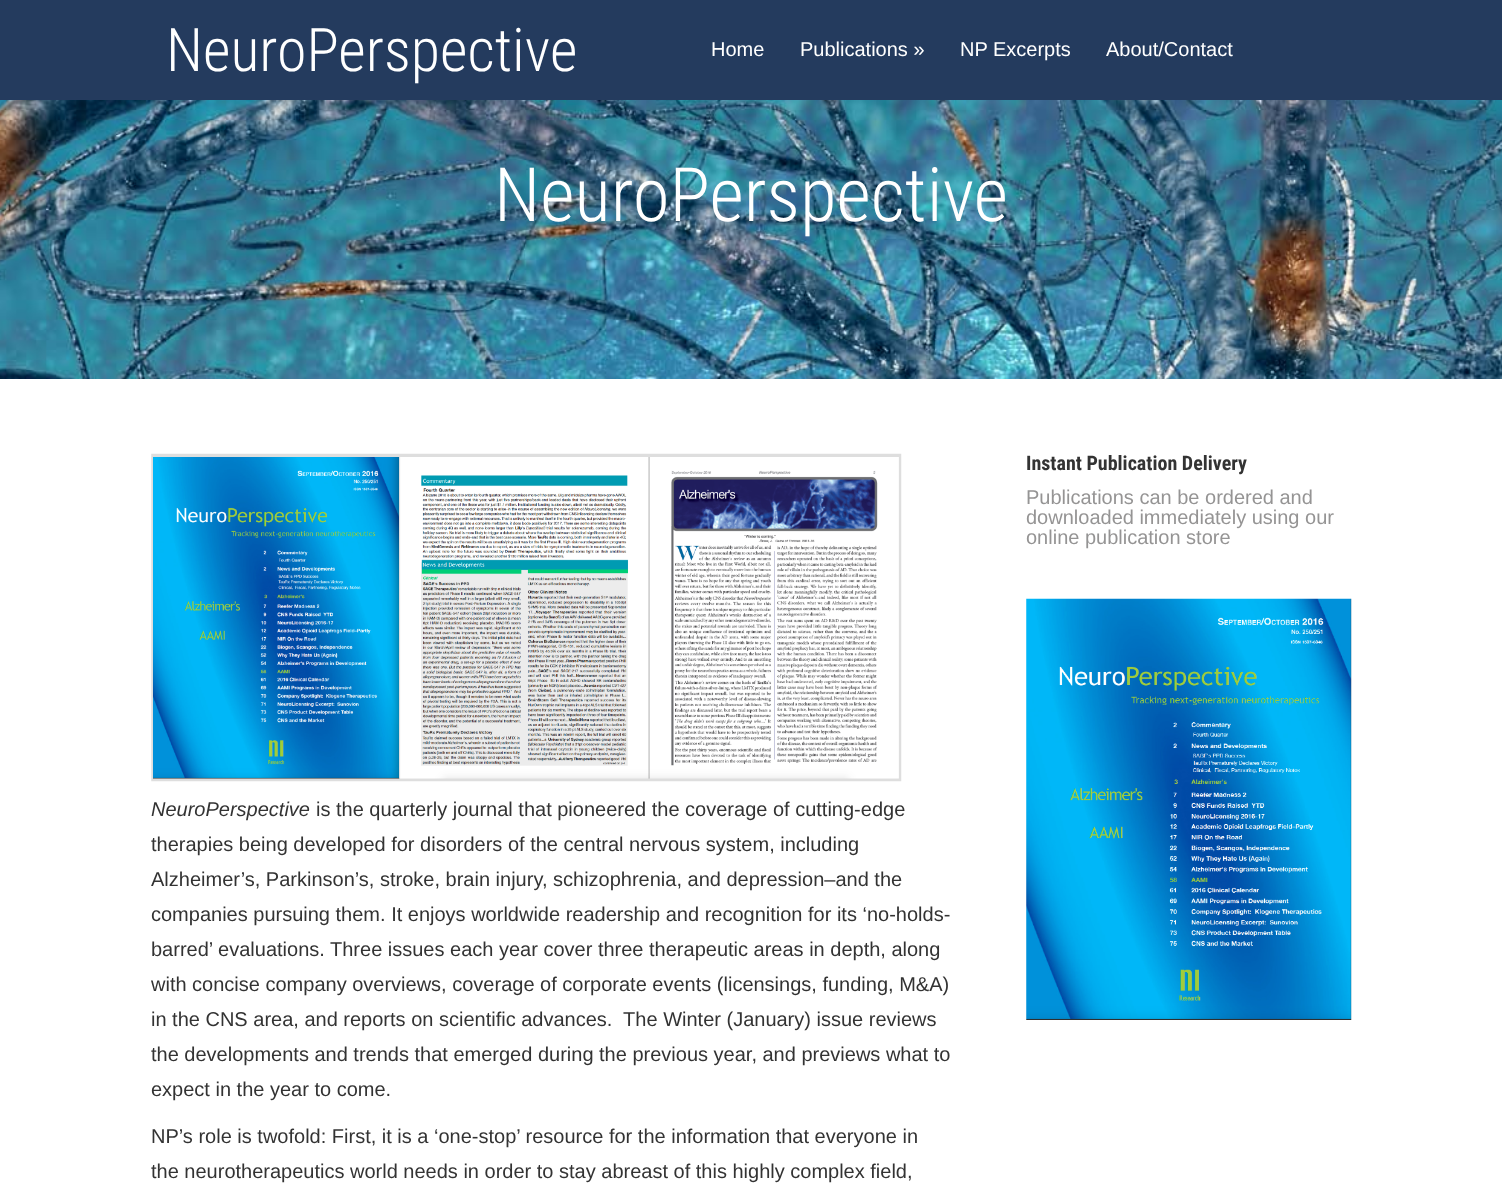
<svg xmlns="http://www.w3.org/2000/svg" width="1502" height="1192">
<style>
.a{font:300 60px Roboto Condensed;fill:#fff}
.b{font:20px Arimo;fill:#fff}
.c{font:300 75px Roboto Condensed;fill:#fff}
.d{font:bold 20px Roboto Condensed;fill:#333}
.e{font:20px Arimo;fill:#959494}
.f{font:italic 20px Arimo;fill:#333}
.g{font:20px Arimo;fill:#333}
</style>
<rect width="100%" height="100%" fill="#fff"/>
<image href="1.png" x="0" y="100" width="1502" height="279"/>
<path fill="#243b5e" d="M0 0h1502v100H0z"/>
<image href="2.png" x="1026" y="598" width="326" height="422"/>
<image href="3.png" x="151" y="453" width="751" height="329"/>
<text class="a" x="166" y="71">NeuroPerspective</text>
<text class="b" x="711" y="56">Home</text>
<text class="b" x="800" y="56">Publications »</text>
<text class="b" x="960" y="56">NP Excerpts</text>
<text class="b" x="1106" y="56">About/Contact</text>
<text class="c" x="494" y="221">NeuroPerspective</text>
<text class="d" x="1026" y="470">Instant Publication Delivery</text>
<text class="e" x="1026" y="504">Publications can be ordered and</text>
<text class="e" x="1026" y="524">downloaded immediately using our</text>
<text class="e" x="1026" y="544">online publication store</text>
<text class="f" x="151" y="816">NeuroPerspective</text>
<text class="g" x="316" y="816">is the quarterly journal that pioneered the coverage of cutting-edge</text>
<text class="g" x="151" y="851">therapies being developed for disorders of the central nervous system, including</text>
<text class="g" x="151" y="886">Alzheimer’s, Parkinson’s, stroke, brain injury, schizophrenia, and depression–and the</text>
<text class="g" x="151" y="921">companies pursuing them. It enjoys worldwide readership and recognition for its ‘no-holds-</text>
<text class="g" x="151" y="956">barred’ evaluations. Three issues each year cover three therapeutic areas in depth, along</text>
<text class="g" x="151" y="991">with concise company overviews, coverage of corporate events (licensings, funding, M&amp;A)</text>
<text class="g" xml:space="preserve" x="151" y="1026">in the CNS area, and reports on scientific advances.  The Winter (January) issue reviews</text>
<text class="g" x="151" y="1061">the developments and trends that emerged during the previous year, and previews what to</text>
<text class="g" x="151" y="1096">expect in the year to come.</text>
<text class="g" x="151" y="1143">NP’s role is twofold: First, it is a ‘one-stop’ resource for the information that everyone in</text>
<text class="g" x="151" y="1178">the neurotherapeutics world needs in order to stay abreast of this highly complex field,</text>
</svg>
